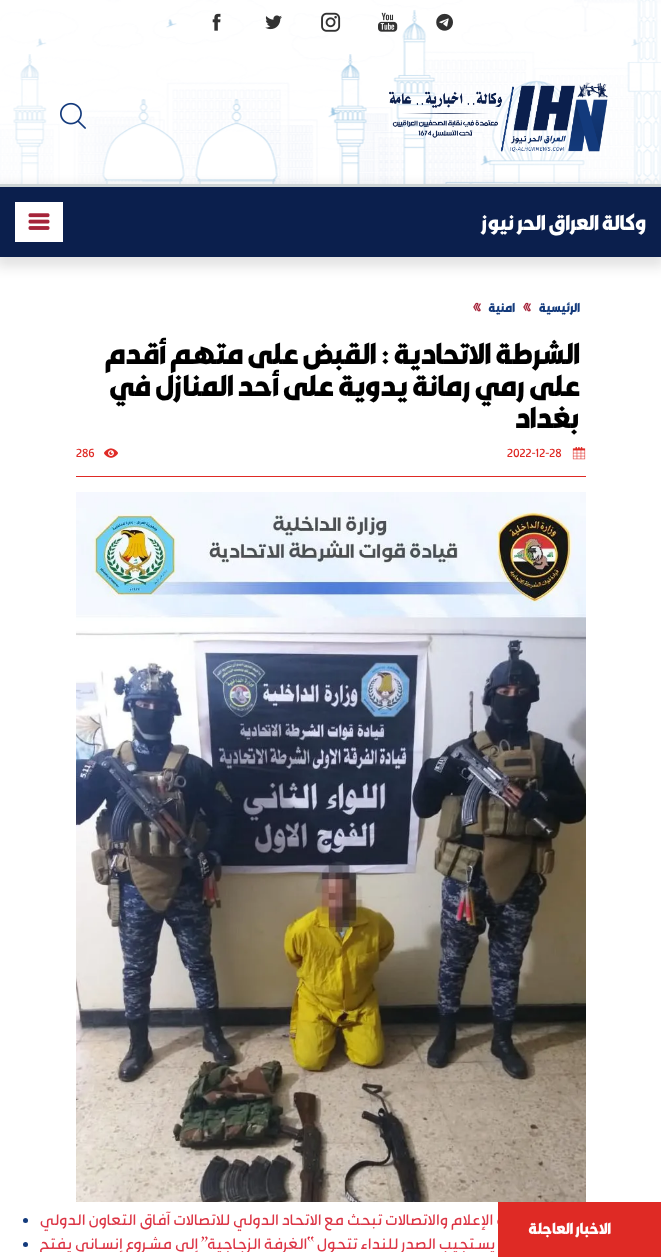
<svg xmlns="http://www.w3.org/2000/svg" width="661" height="1257">
<style>
.a{font:bold 20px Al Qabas;direction:rtl;fill:#fff}
.b{font:16px Al Qabas;direction:rtl;fill:#dc3545}
.c{font:bold 15px Al Qabas;direction:rtl;fill:#fff}
.d{font:bold 12px Al Qabas;direction:rtl;fill:#133a7c}
.e{font:bold 28px Al Qabas;direction:rtl;fill:#000}
.f{font:12px Al Qabas;fill:#df2a25}
</style>
<defs>
<clipPath id="clip1"><path d="M0 1207h529v45H0z"/></clipPath>
</defs>
<rect width="100%" height="100%" fill="#fff"/>
<image href="1.png" x="0" y="0" width="661" height="184"/>
<image href="2.png" x="436" y="13" width="17" height="18"/>
<image href="3.png" x="378" y="12" width="20" height="20"/>
<image href="4.png" x="321" y="12" width="20" height="20"/>
<image href="5.png" x="265" y="15" width="17" height="15"/>
<image href="6.png" x="212" y="13" width="9" height="18"/>
<image href="7.png" x="389" y="82" width="219" height="70"/>
<image href="8.png" x="60" y="102" width="26" height="27"/>
<path fill="#1717171f" filter="blur(6px)" d="M-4 186h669v81H-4z"/>
<path fill="#0b1f4d" d="M0 187h661v70H0z"/>
<path fill="#cdd4d5" d="M0 184h661v3H0z"/>
<path fill="#fff" d="M15 202h48v40H15z"/>
<image href="9.png" x="28" y="213" width="22" height="17"/>
<circle fill="#133a7c" cx="25.5" cy="1220.5" r="2.5"/>
<circle fill="#133a7c" cx="25.5" cy="1244.5" r="2.5"/>
<image href="10.png" x="523" y="302" width="8" height="10"/>
<image href="10.png" x="473" y="302" width="8" height="10"/>
<path fill="#df2a25" d="M76 476h510v1H76z"/>
<image href="11.png" x="572" y="447" width="14" height="13"/>
<image href="12.png" x="104" y="448" width="14" height="10"/>
<image href="13.png" x="76" y="492" width="510" height="710"/>
<text class="a" x="646" y="230">وكالة العراق الحر نيوز</text>
<text class="b" x="528" y="1225">هيأة الإعلام والاتصالات تبحث مع الاتحاد الدولي للاتصالات آفاق التعاون الدولي</text>
<g clip-path="url(#clip1)">
<text class="b" x="526" y="1249">حين يستجيب الصدر للنداء تتحول “الغرفة الزجاجية” إلى مشروع إنساني يفتح</text>
</g>
<path fill="#df2a25" d="M498 1202h163v55H498z"/>
<text class="c" x="611" y="1234">الاخبار العاجلة</text>
<text class="d" x="580" y="312">الرئيسية</text>
<text class="d" x="515" y="312">امنية</text>
<text class="e" x="580" y="364">الشرطة الاتحادية : القبض على متهم أقدم</text>
<text class="e" x="580" y="396">على رمي رمانة يدوية على أحد المنازل في</text>
<text class="e" x="580" y="428">بغداد</text>
<text class="f" x="507" y="457">2022-12-28</text>
<text class="f" x="76" y="457">286</text>
</svg>
